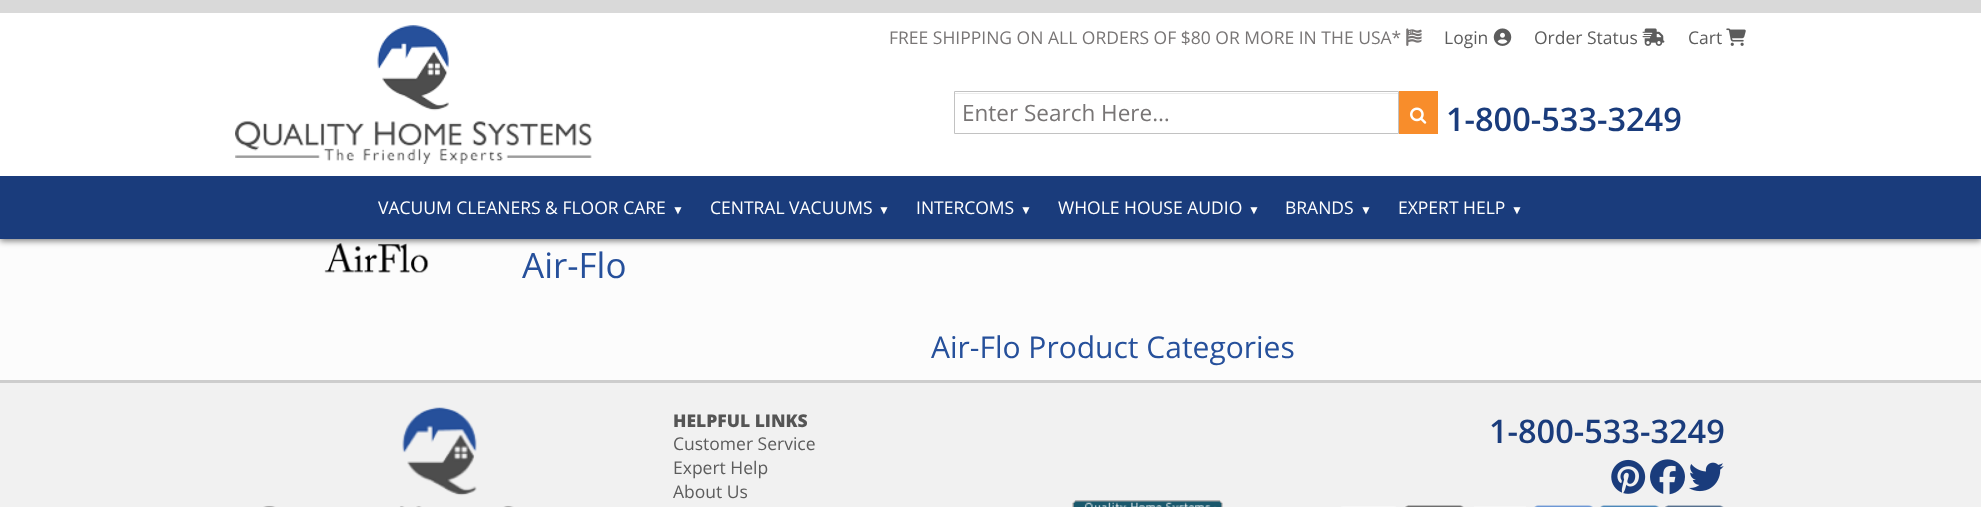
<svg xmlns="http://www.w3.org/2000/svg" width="1981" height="507">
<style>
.a{font:17.5px Open Sans;fill:#787575}
.b{font:17.5px Open Sans;fill:#5c5c5c}
.c{font:22.5px Open Sans;fill:#787575}
.d{font:600 32.5px Open Sans;fill:#1a3c7c}
.e{font:17.5px Open Sans;fill:#fff}
.f{font:12px Liberation Sans;fill:#fff}
.g{font:35px Open Sans;fill:#26509b}
.h{font:30px Open Sans;fill:#26509b}
.i{font:800 17.5px Open Sans;fill:#555}
</style>
<rect width="100%" height="100%" fill="#fcfcfc"/>
<image href="7.png" x="324" y="243" width="105" height="30"/>
<path fill="#00000080" filter="blur(3px)" d="M0 3h1981v238H0z"/>
<path fill="#fff" d="M0 13h1981v163H0z"/>
<path fill="#d9d9d9" d="M0 0h1981v13H0z"/>
<image href="1.png" x="235" y="25" width="357" height="139"/>
<image href="2.png" x="1406" y="28" width="16" height="18"/>
<image href="3.png" x="1493" y="28" width="19" height="18"/>
<image href="4.png" x="1642" y="28" width="23" height="18"/>
<image href="5.png" x="1726" y="28" width="20" height="18"/>
<path fill="#ececec" d="M955 93h443v1H955z"/>
<path fill="none" stroke="#c2c2c2" d="M954.5 91.5h444v42H954.5z"/>
<path fill="#f88d2b" d="M1399 91h39v43H1399z"/>
<image href="6.png" x="1410" y="107" width="17" height="17"/>
<path fill="#1a3c7c" d="M0 176h1981v63H0z"/>
<path fill="#f1f1f1" d="M0 383h1981v124H0z"/>
<path fill="#cdcdcd" d="M0 380h1981v3H0z"/>
<image href="8.png" x="263" y="407" width="251" height="100"/>
<image href="9.png" x="1611" y="459" width="35" height="35"/>
<image href="10.png" x="1650" y="459" width="35" height="36"/>
<image href="11.png" x="1689" y="462" width="35" height="30"/>
<image href="12.png" x="1072" y="500" width="151" height="7"/>
<image href="13.png" x="1341" y="506" width="55" height="1"/>
<image href="14.png" x="1405" y="505" width="59" height="2"/>
<path fill="#f6f6f6" d="M1474 506h52v1H1474z"/>
<image href="15.png" x="1534" y="505" width="59" height="2"/>
<image href="16.png" x="1600" y="505" width="59" height="2"/>
<image href="17.png" x="1665" y="505" width="59" height="2"/>
<text class="a" x="889" y="44">FREE SHIPPING ON ALL ORDERS OF $80 OR MORE IN THE USA*</text>
<text class="b" x="1444" y="44">Login</text>
<text class="b" x="1534" y="44">Order Status</text>
<text class="b" x="1688" y="44">Cart</text>
<text class="c" x="962" y="121">Enter Search Here…</text>
<text class="d" x="1446" y="131">1-800-533-3249</text>
<text class="e" x="378" y="214">VACUUM CLEANERS &amp; FLOOR CARE</text>
<text class="f" x="672" y="214">▼</text>
<text class="e" x="710" y="214">CENTRAL VACUUMS</text>
<text class="f" x="878" y="214">▼</text>
<text class="e" x="916" y="214">INTERCOMS</text>
<text class="f" x="1020" y="214">▼</text>
<text class="e" x="1058" y="214">WHOLE HOUSE AUDIO</text>
<text class="f" x="1248" y="214">▼</text>
<text class="e" x="1285" y="214">BRANDS</text>
<text class="f" x="1360" y="214">▼</text>
<text class="e" x="1398" y="214">EXPERT HELP</text>
<text class="f" x="1511" y="214">▼</text>
<text class="g" x="522" y="278">Air-Flo</text>
<text class="h" x="931" y="358">Air-Flo Product Categories</text>
<text class="i" x="673" y="427">HELPFUL LINKS</text>
<text class="b" x="673" y="450">Customer Service</text>
<text class="b" x="673" y="474">Expert Help</text>
<text class="b" x="673" y="498">About Us</text>
<text class="d" x="1489" y="443">1-800-533-3249</text>
</svg>
